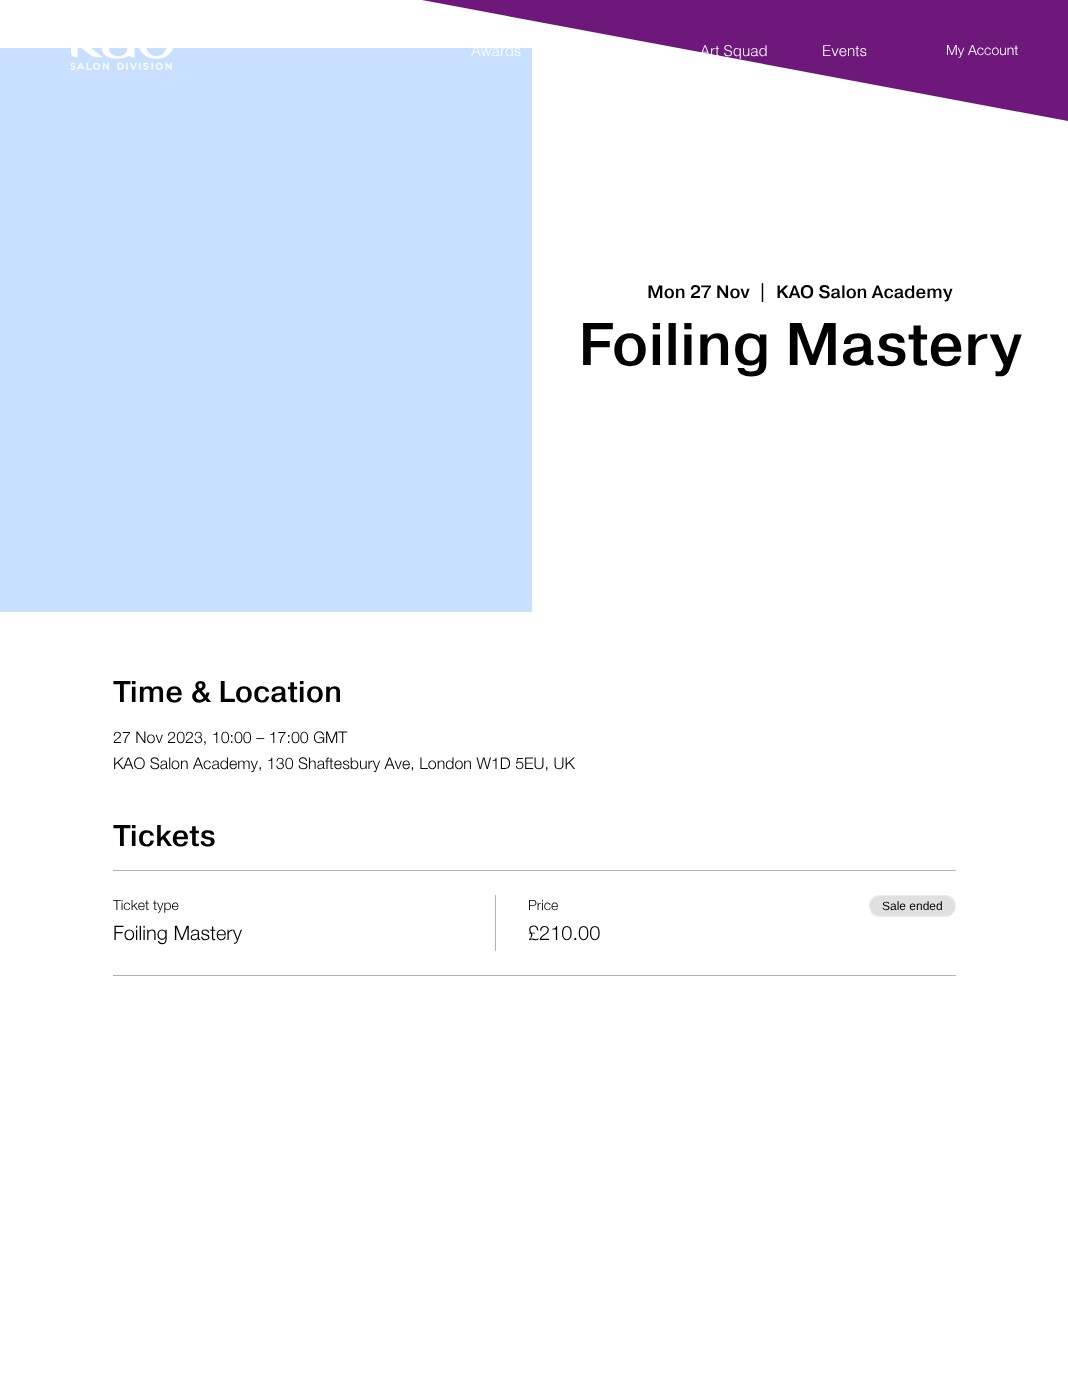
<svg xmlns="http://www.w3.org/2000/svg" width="1068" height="1374">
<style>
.a{font:300 15px helvetica;fill:#fff}
.b{font:300 14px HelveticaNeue;fill:#fff}
.c{font:500 18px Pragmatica;fill:#000}
.d{font:500 60px Pragmatica;fill:#000}
.e{font:500 30px Pragmatica;fill:#000}
.f{font:300 16px HelveticaNeue;fill:#000}
.g{font:300 14px HelveticaNeue;fill:#000}
.h{font:300 20px HelveticaNeue;fill:#000}
.i{font:12px Liberation Sans;fill:#000}
</style>
<rect width="100%" height="100%" fill="#fff"/>
<path fill="#6e187c" d="M422 0h646v121H422z"/>
<path fill="#fff" d="M1068 121l-1068-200v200z"/>
<path fill="#c8e0fe" d="M0 48h532v564H0z"/>
<image href="1.png" x="71" y="48" width="102" height="22"/>
<path fill="#b3b3b3" d="M113 870h843v1H113z"/>
<path fill="#b3b3b3" d="M113 975h843v1H113z"/>
<path fill="#b3b3b3" d="M495 895h1v56H495z"/>
<rect fill="#e0e0e0" x="869" y="895" width="87" height="22" rx="11"/>
<rect fill="none" stroke="#ffffff66" x="869.5" y="895.5" width="86" height="21" rx="10.5"/>
<text class="a" x="471" y="56">Awards</text>
<text class="a" x="700" y="56">Art Squad</text>
<text class="a" x="822" y="56">Events</text>
<text class="b" x="946" y="55">My Account</text>
<text class="c" x="647" y="298">Mon 27 Nov</text>
<text class="c" x="758" y="298">|</text>
<text class="c" x="776" y="298">KAO Salon Academy</text>
<text class="d" x="578" y="365">Foiling Mastery</text>
<text class="e" x="113" y="702">Time &amp; Location</text>
<text class="f" x="113" y="743">27 Nov 2023, 10:00 – 17:00 GMT</text>
<text class="f" x="113" y="769">KAO Salon Academy, 130 Shaftesbury Ave, London W1D 5EU, UK</text>
<text class="e" x="113" y="846">Tickets</text>
<text class="g" x="113" y="910">Ticket type</text>
<text class="h" x="113" y="940">Foiling Mastery</text>
<text class="g" x="528" y="910">Price</text>
<text class="h" x="528" y="940">£210.00</text>
<text class="i" x="882" y="910">Sale ended</text>
</svg>
